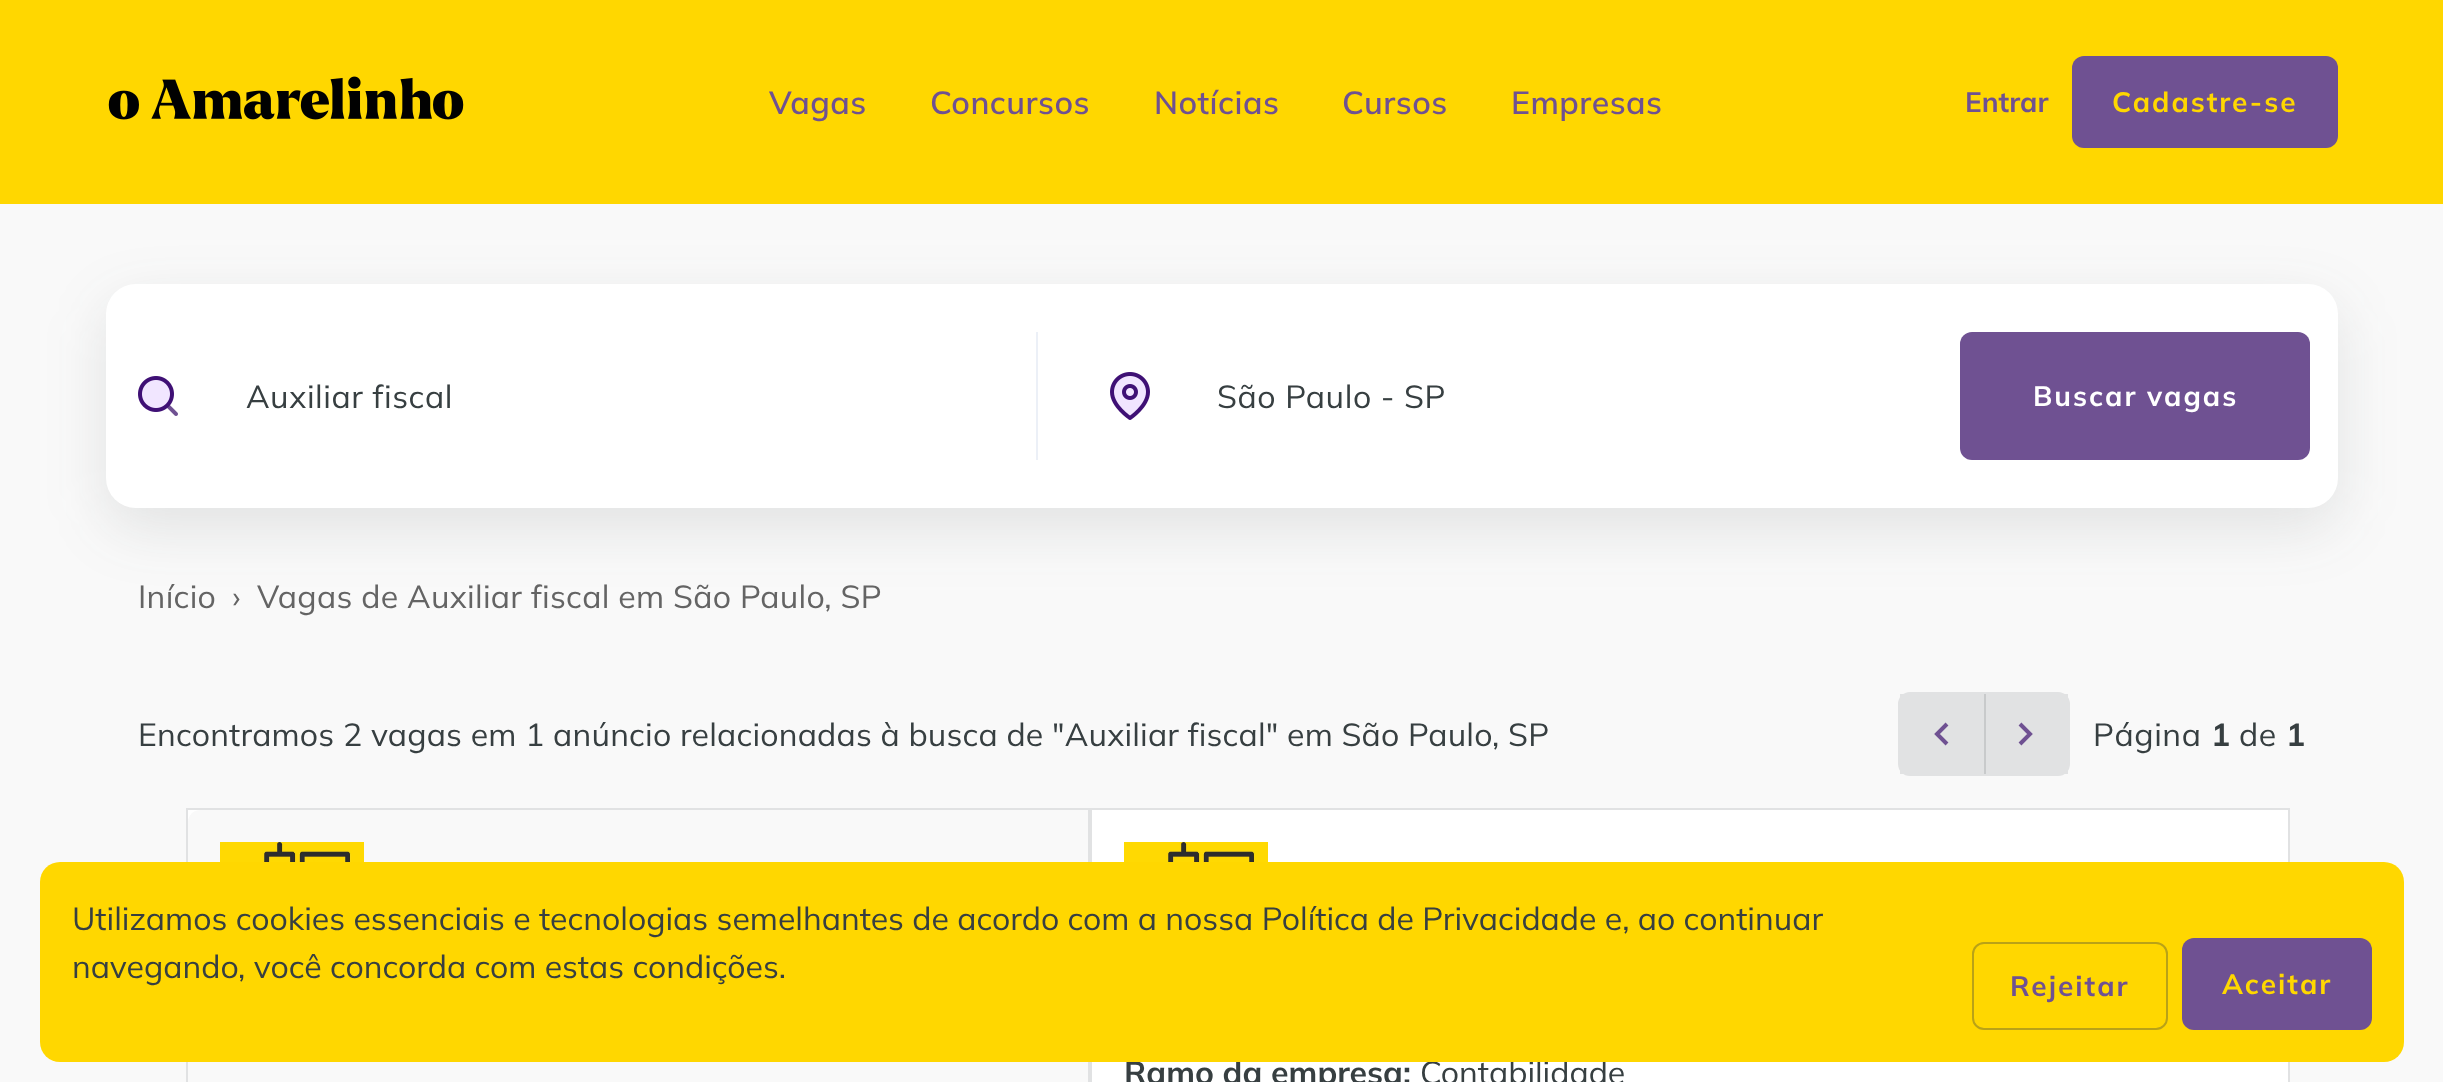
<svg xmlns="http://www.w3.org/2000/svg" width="2443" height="1082">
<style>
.a{font:600 32px Mulish;letter-spacing:0.5px;fill:#6f5192}
.b{font:bold 28px Mulish;fill:#6f5192}
.c{font:bold 28px Mulish;letter-spacing:2px;fill:#ffd700}
.d{font:32px Mulish;letter-spacing:0.6px;fill:#373f41}
.e{font:bold 28px Mulish;letter-spacing:2px;fill:#fff}
.f{font:32px Mulish;letter-spacing:0.3px;fill:#646464}
.g{font:32px Mulish;letter-spacing:0.2px;fill:#373f41}
.h{font:bold 32px Mulish;letter-spacing:0.6px;fill:#373f41}
.i{font:bold 32px Mulish;fill:#373f41}
.j{font:32px Mulish;fill:#373f41}
.k{font:bold 28px Mulish;letter-spacing:2px;fill:#6f5192}
</style>
<rect width="100%" height="100%" fill="#f9f9f9"/>
<path fill="#ffd700" d="M0 0h2443v204H0z"/>
<image href="1.png" x="108" y="76" width="356" height="44"/>
<rect fill="#6f5192" x="2072" y="56" width="266" height="92" rx="12"/>
<rect fill="#373f411f" filter="blur(30px)" x="106" y="304" width="2232" height="224" rx="30"/>
<rect fill="#fff" x="106" y="284" width="2232" height="224" rx="30"/>
<image href="2.png" x="138" y="376" width="40" height="40"/>
<path fill="#ecf0f7" d="M1036 332h2v128H1036z"/>
<image href="3.png" x="1110" y="372" width="40" height="48"/>
<rect fill="#6f5192" x="1960" y="332" width="350" height="128" rx="12"/>
<rect fill="#fff" x="1898" y="692" width="172" height="84" rx="12"/>
<rect fill="none" stroke="#373f4126" stroke-width="2" x="1899" y="693" width="170" height="82" rx="11"/>
<path fill="#e1e2e3" d="M1900 694h84v80H1900z"/>
<path fill="none" stroke="#6f5192" stroke-width="4" d="M1947 724l-10 10l10 10"/>
<path fill="#c8cacb" d="M1984 694h2v80H1984z"/>
<path fill="#e1e2e3" d="M1986 694h82v80H1986z"/>
<path fill="none" stroke="#6f5192" stroke-width="4" d="M2020 744l10-10l-10-10"/>
<path fill="#fff" d="M188 810h12v12H188z"/>
<path fill="none" stroke="#e1e2e3" stroke-width="2" d="M187 809h902v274H187z"/>
<path fill="#f9f9f9" d="M200 810h888v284h-888c-6.5 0-12-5.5-12-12v-260c0-6.5 5.5-12 12-12z"/>
<image href="4.png" x="220" y="842" width="144" height="20"/>
<path fill="#fff" stroke="#e1e2e3" stroke-width="2" d="M1091 809h1198v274H1091z"/>
<image href="5.png" x="1124" y="842" width="144" height="20"/>
<text class="a" x="769" y="114">Vagas</text>
<text class="a" x="930" y="114">Concursos</text>
<text class="a" x="1154" y="114">Notícias</text>
<text class="a" x="1342" y="114">Cursos</text>
<text class="a" x="1511" y="114">Empresas</text>
<text class="b" x="1965" y="112">Entrar</text>
<text class="c" x="2112" y="112">Cadastre-se</text>
<text class="d" x="246" y="408">Auxiliar fiscal</text>
<text class="d" x="1217" y="408">São Paulo - SP</text>
<text class="e" x="2033" y="406">Buscar vagas</text>
<text class="f" x="138" y="608">Início</text>
<text class="f" x="232" y="608">›</text>
<text class="f" x="257" y="608">Vagas de Auxiliar fiscal em São Paulo, SP</text>
<text class="g" x="138" y="746">Encontramos 2 vagas em 1 anúncio relacionadas à busca de "Auxiliar fiscal" em São Paulo, SP</text>
<text class="d" x="2093" y="746">Página</text>
<text class="h" x="2211" y="746">1</text>
<text class="d" x="2239" y="746">de</text>
<text class="h" x="2286" y="746">1</text>
<text class="i" x="1124" y="1084">Ramo da empresa:</text>
<text class="j" x="1420" y="1084">Contabilidade</text>
<rect fill="#ffd700" x="40" y="862" width="2364" height="200" rx="20"/>
<text class="j" x="72" y="930">Utilizamos cookies essenciais e tecnologias semelhantes de acordo com a nossa Política de Privacidade e, ao continuar</text>
<text class="j" x="72" y="978">navegando, você concorda com estas condições.</text>
<rect fill="none" stroke="#b9a217" stroke-width="2" x="1973" y="943" width="194" height="86" rx="11"/>
<text class="k" x="2010" y="996">Rejeitar</text>
<rect fill="#6f5192" x="2182" y="938" width="190" height="92" rx="12"/>
<text class="c" x="2222" y="994">Aceitar</text>
</svg>
